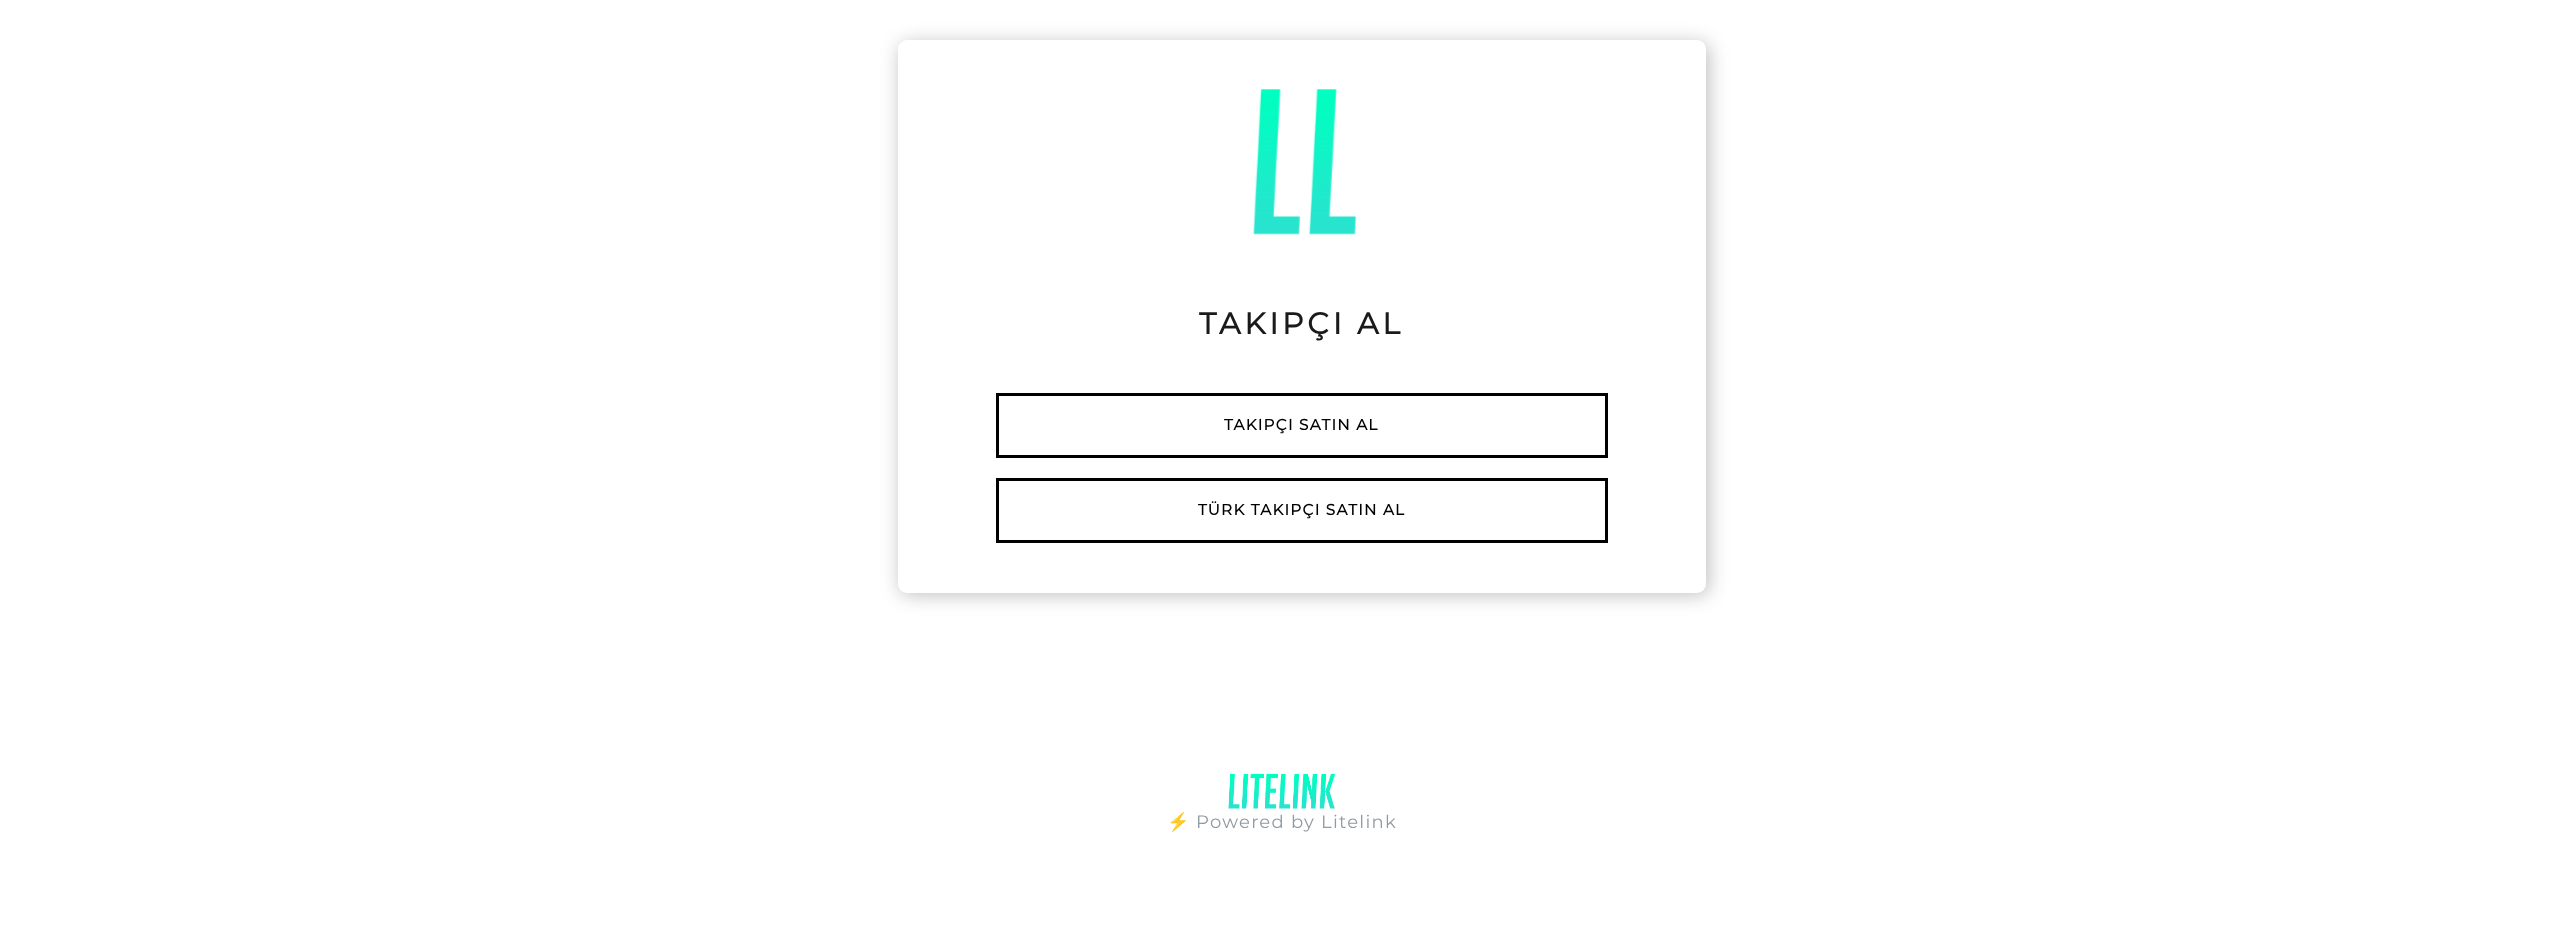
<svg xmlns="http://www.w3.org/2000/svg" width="2563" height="935">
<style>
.a{font:bold 30px Montserrat;letter-spacing:3.75px;fill:#1a1a1a}
.b{font:bold 15.25px Montserrat;letter-spacing:1.25px;fill:#000}
.c{font:18px Noto Color Emoji;letter-spacing:1.25px;fill:#919aa1}
.d{font:100 18px Montserrat;letter-spacing:1.25px;fill:#919aa1}
</style>
<rect width="100%" height="100%" fill="#fff"/>
<rect fill="#00000040" filter="blur(9.5px)" x="900" y="43" width="809" height="552" rx="9"/>
<rect fill="#fff" x="898" y="40" width="808" height="553" rx="9"/>
<image href="1.png" x="1253" y="89" width="104" height="146"/>
<path fill="none" stroke="#000" stroke-width="3" d="M997.5 394.5h609v62H997.5z"/>
<path fill="none" stroke="#000" stroke-width="3" d="M997.5 479.5h609v62H997.5z"/>
<image href="2.png" x="1228" y="773" width="108" height="36"/>
<text class="a" x="1199" y="334">TAKIPÇI AL</text>
<text class="b" x="1224" y="430">TAKIPÇI SATIN AL</text>
<text class="b" x="1198" y="515">TÜRK TAKIPÇI SATIN AL</text>
<text class="c" x="1167" y="828">⚡</text>
<text class="d" x="1196" y="828">Powered by Litelink</text>
</svg>
